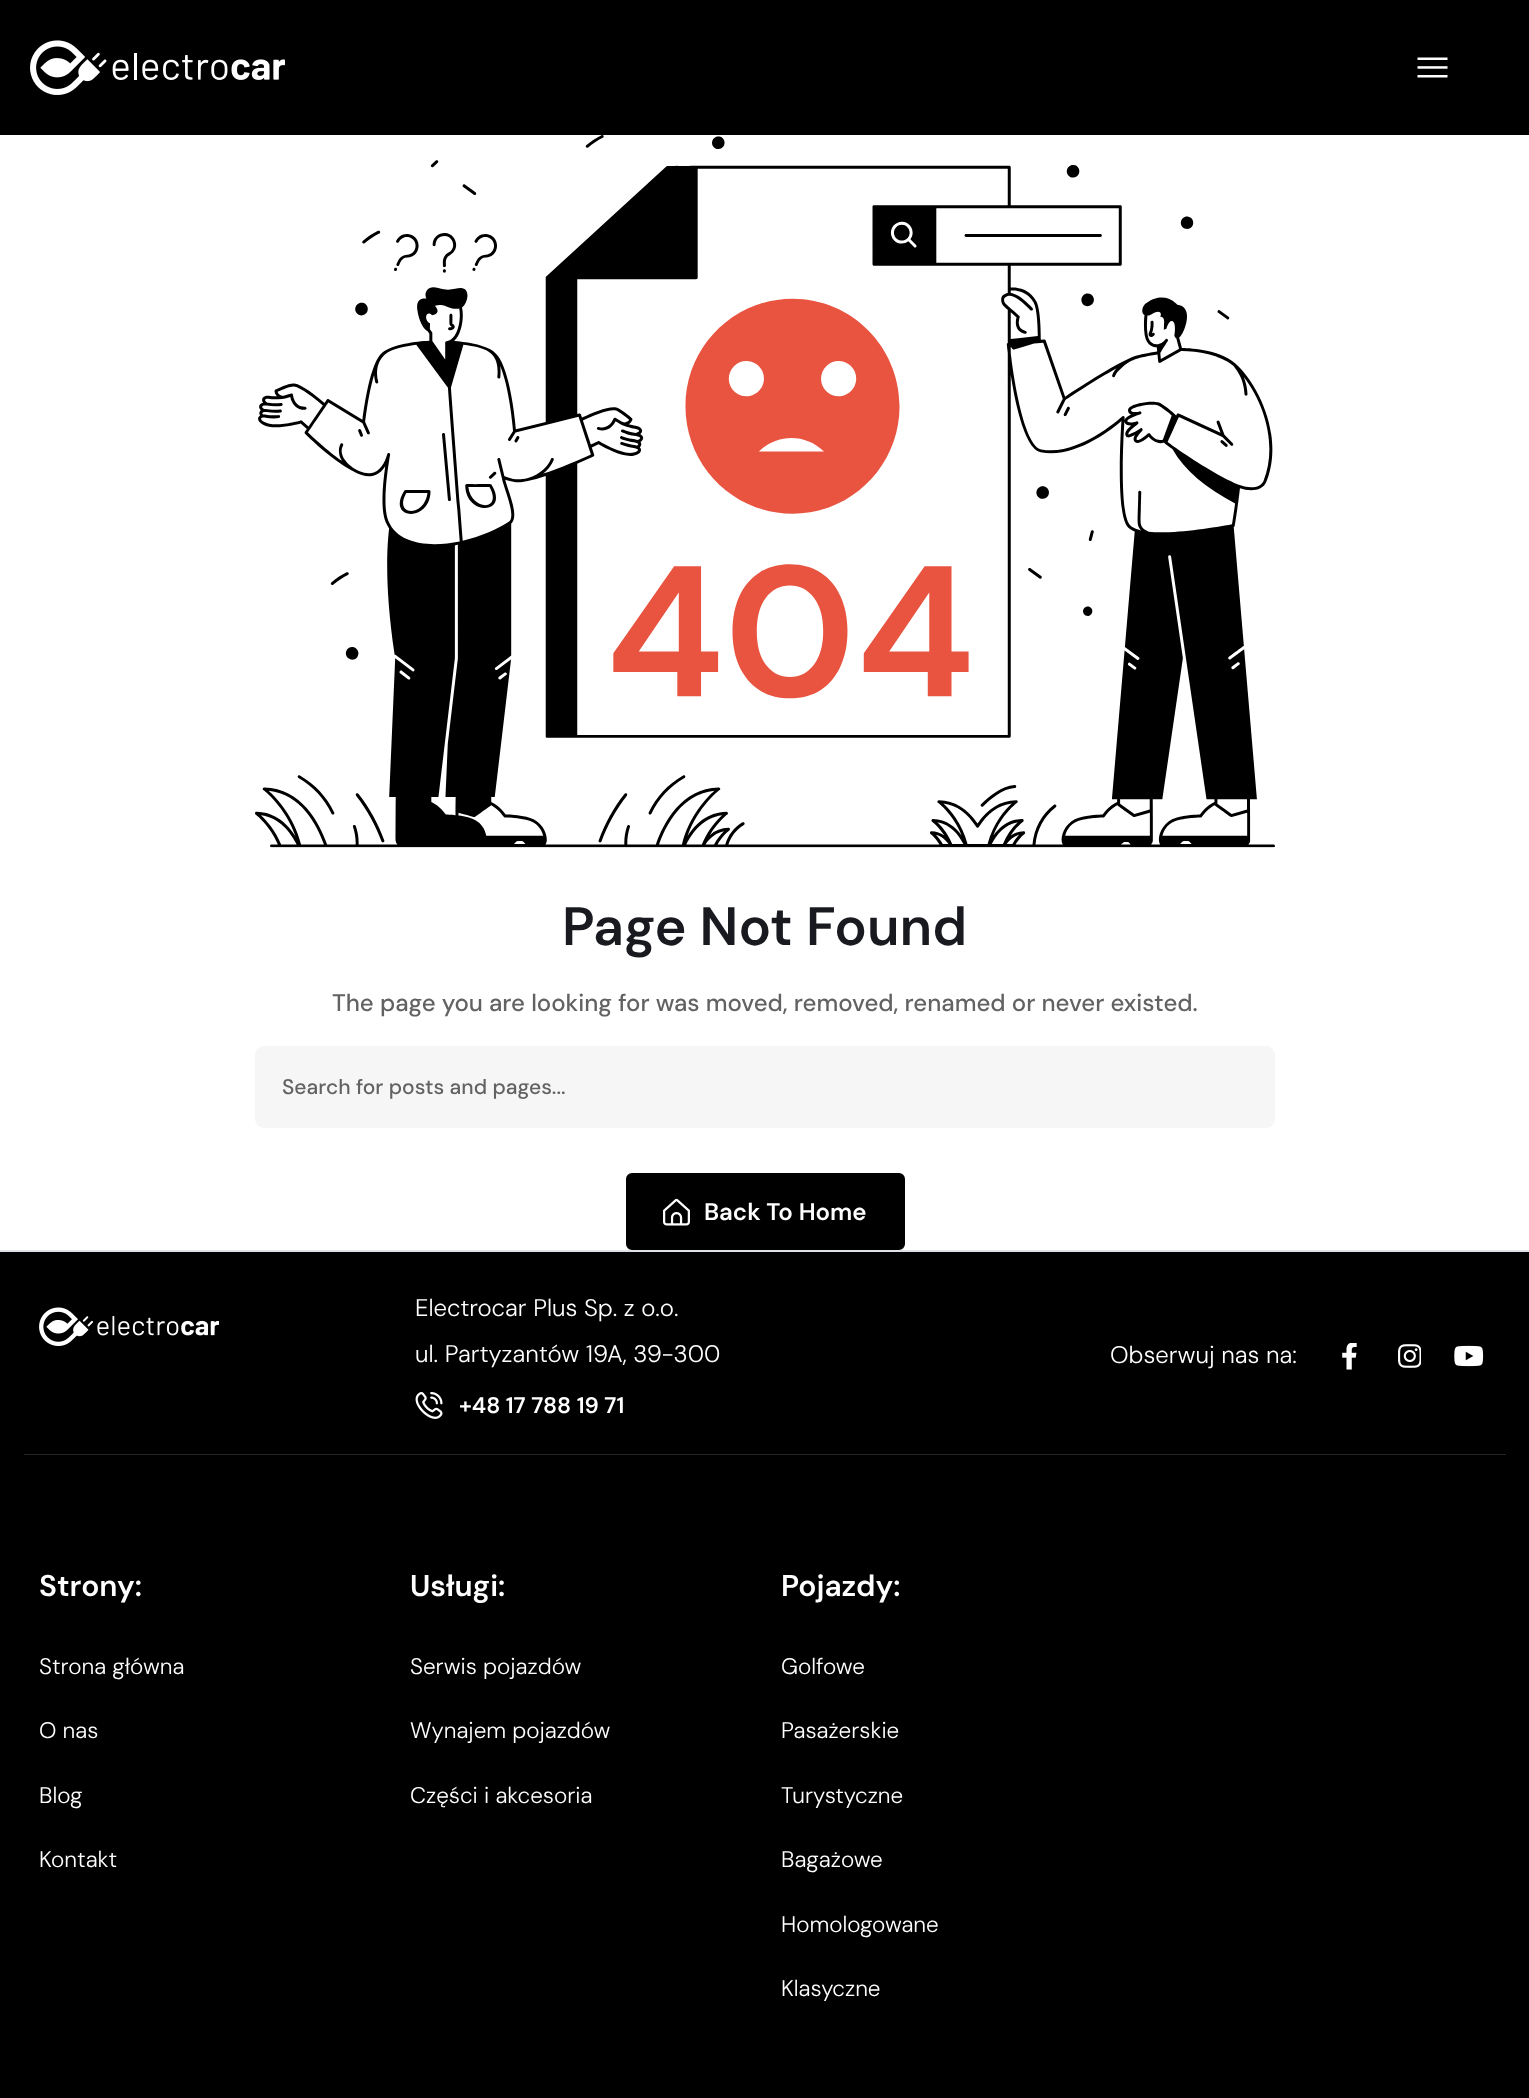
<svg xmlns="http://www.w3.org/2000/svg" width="1529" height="2098">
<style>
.a{font:600 54px DM Sans;fill:#181a1f}
.b{font:500 24px DM Sans;fill:#626262}
.c{font:500 21px DM Sans;fill:#626262}
.d{font:600 24px DM Sans;fill:#fff}
.e{font:300 24px DM Sans;fill:#fff}
.f{font:600 22.5px DM Sans;fill:#fff}
.g{font:600 30px DM Sans;fill:#fff}
.h{font:300 22.5px DM Sans;fill:#fff}
</style>
<rect width="100%" height="100%" fill="#fff"/>
<path fill="#000" d="M0 0h1529v135H0z"/>
<image href="1.png" x="30" y="40" width="255" height="55"/>
<image href="2.png" x="1417" y="57" width="31" height="21"/>
<image href="3.png" x="255" y="135" width="1020" height="713"/>
<rect fill="#f6f6f6" stroke="#f6f6f6" stroke-width="3" x="256.5" y="1047.5" width="1017" height="79" rx="7.5"/>
<rect fill="#000" stroke="#000" stroke-width="2" x="627" y="1174" width="277" height="75" rx="5"/>
<image href="4.png" x="663" y="1198" width="27" height="28"/>
<path fill="#000" d="M0 1252h1529v846H0z"/>
<path fill="#242424" d="M24 1454h1482v1H24z"/>
<path fill="#dee2e6" d="M0 1250h1529v2H0z"/>
<image href="5.png" x="39" y="1307" width="180" height="39"/>
<image href="6.png" x="415" y="1392" width="28" height="27"/>
<image href="7.png" x="1342" y="1343" width="15" height="27"/>
<image href="8.png" x="1398" y="1344" width="23" height="24"/>
<image href="9.png" x="1454" y="1345" width="30" height="22"/>
<text class="a" x="562" y="945">Page Not Found</text>
<text class="b" x="332" y="1011">The page you are looking for was moved, removed, renamed or never existed.</text>
<text class="c" x="282" y="1094">Search for posts and pages...</text>
<text class="d" x="704" y="1220">Back To Home</text>
<text class="e" x="415" y="1316">Electrocar Plus Sp. z o.o.</text>
<text class="e" x="415" y="1362">ul. Partyzantów 19A, 39-300</text>
<text class="f" x="459" y="1413">+48 17 788 19 71</text>
<text class="e" x="1110" y="1363">Obserwuj nas na:</text>
<text class="g" x="39" y="1596">Strony:</text>
<text class="h" x="39" y="1674">Strona główna</text>
<text class="h" x="39" y="1738">O nas</text>
<text class="h" x="39" y="1803">Blog</text>
<text class="h" x="39" y="1867">Kontakt</text>
<text class="g" x="410" y="1596">Usługi:</text>
<text class="h" x="410" y="1674">Serwis pojazdów</text>
<text class="h" x="410" y="1738">Wynajem pojazdów</text>
<text class="h" x="410" y="1803">Części i akcesoria</text>
<text class="g" x="781" y="1596">Pojazdy:</text>
<text class="h" x="781" y="1674">Golfowe</text>
<text class="h" x="781" y="1738">Pasażerskie</text>
<text class="h" x="781" y="1803">Turystyczne</text>
<text class="h" x="781" y="1867">Bagażowe</text>
<text class="h" x="781" y="1932">Homologowane</text>
<text class="h" x="781" y="1996">Klasyczne</text>
</svg>
